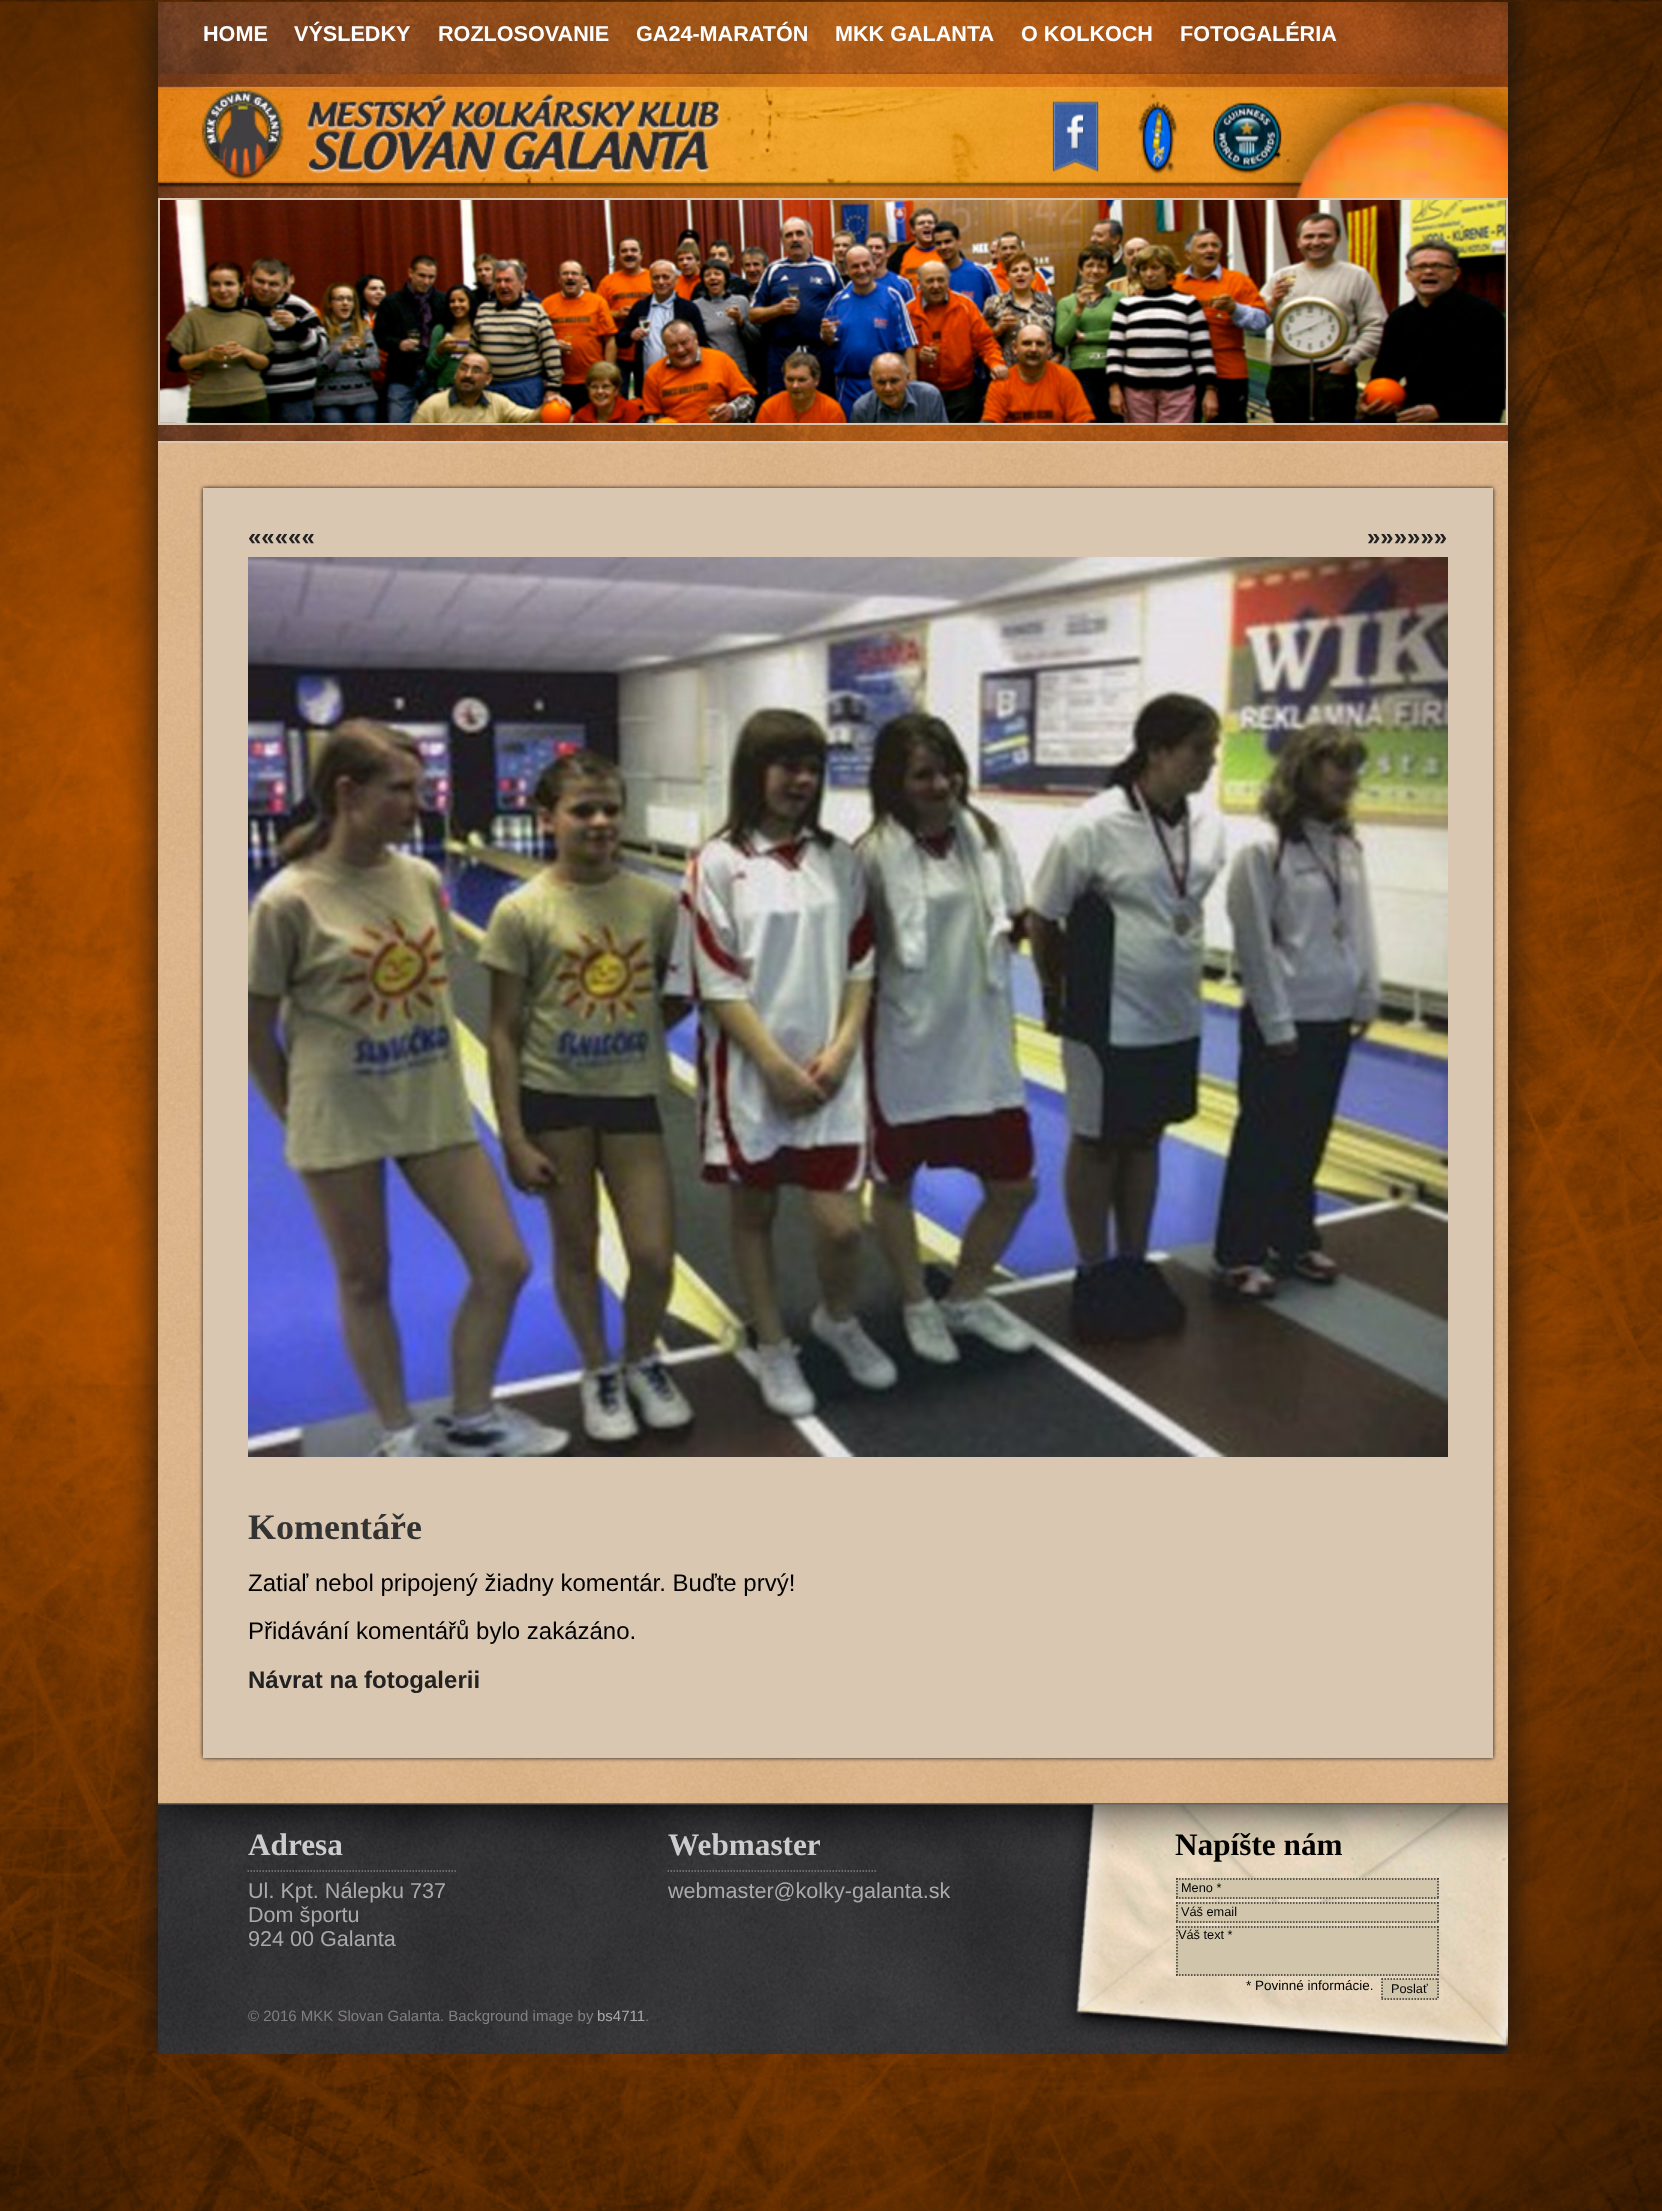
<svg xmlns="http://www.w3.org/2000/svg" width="1662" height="2211">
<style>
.a{font:bold 21.6px Liberation Sans;fill:#fff}
.b{font:bold 24px Liberation Sans;fill:#222}
.c{font:bold 36px Liberation Serif;fill:#333}
.d{font:24px Liberation Sans;fill:#000}
.e{font:bold 31.25px Liberation Serif;fill:#ccc}
.f{font:21.6px Liberation Sans;fill:#aaa}
.g{font:bold 31.25px Liberation Serif;fill:#000}
.h{font:12.75px Liberation Sans;fill:#000}
.i{font:13.5px Liberation Sans;fill:#000}
.j{font:15px Liberation Sans;fill:#808080}
.k{font:15px Liberation Sans;fill:#aaa}
</style>
<defs>
<clipPath id="clip1"><path d="M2 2h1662v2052H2z"/></clipPath>
</defs>
<rect width="100%" height="100%" fill="#fff"/>
<image href="1.png" x="0" y="0" width="1662" height="2211"/>
<g clip-path="url(#clip1)">
<path fill="#111" filter="blur(19px)" d="M158 -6h1350v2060H158z"/>
</g>
<image href="2.png" x="158" y="2" width="1350" height="72"/>
<path fill="#dac7b2" d="M158 441h1350v2H158z"/>
<image href="3.png" x="158" y="74" width="1350" height="367"/>
<image href="4.png" x="202" y="87" width="520" height="96"/>
<image href="5.png" x="1052" y="101" width="47" height="71"/>
<image href="6.png" x="1137" y="88" width="41" height="94"/>
<image href="7.png" x="1212" y="88" width="71" height="94"/>
<image href="8.png" x="160" y="200" width="1346" height="223"/>
<path fill="none" stroke="#dac7b2" stroke-width="2" d="M159 199h1348v225H159z"/>
<image href="9.png" x="158" y="443" width="1350" height="1360"/>
<path fill="#111" filter="blur(2px)" d="M203 488h1290v1270H203z"/>
<path fill="#dac7b2" d="M203 488h1290v1270H203z"/>
<image href="10.png" x="248" y="557" width="1200" height="900"/>
<image href="11.png" x="158" y="1803" width="1350" height="251"/>
<path fill="none" stroke="#808080" stroke-width="1.5" stroke-dasharray="1.5 1.5" d="M247.5 1871h210"/>
<path fill="none" stroke="#808080" stroke-width="1.5" stroke-dasharray="1.5 1.5" d="M667.5 1871h210"/>
<path fill="#d1c6ab" d="M1176 1878h263v21H1176z"/>
<path fill="none" stroke="#333" stroke-width="1.5" stroke-dasharray="1.5 1.5" d="M1176 1879h262.5"/>
<path fill="none" stroke="#333" stroke-width="1.5" stroke-dasharray="1.5 1.5" d="M1438 1878v21"/>
<path fill="none" stroke="#333" stroke-width="1.5" stroke-dasharray="1.5 1.5" d="M1176 1898h262.5"/>
<path fill="none" stroke="#333" stroke-width="1.5" stroke-dasharray="1.5 1.5" d="M1177 1878v21"/>
<path fill="#d1c6ab" d="M1176 1902h263v21H1176z"/>
<path fill="none" stroke="#333" stroke-width="1.5" stroke-dasharray="1.5 1.5" d="M1176 1903h262.5"/>
<path fill="none" stroke="#333" stroke-width="1.5" stroke-dasharray="1.5 1.5" d="M1438 1902v21"/>
<path fill="none" stroke="#333" stroke-width="1.5" stroke-dasharray="1.5 1.5" d="M1176 1922h262.5"/>
<path fill="none" stroke="#333" stroke-width="1.5" stroke-dasharray="1.5 1.5" d="M1177 1902v21"/>
<path fill="#d1c6ab" d="M1176 1926h263v50H1176z"/>
<path fill="none" stroke="#333" stroke-width="1.5" stroke-dasharray="1.5 1.5" d="M1176 1927h262.5"/>
<path fill="none" stroke="#333" stroke-width="1.5" stroke-dasharray="1.5 1.5" d="M1438 1926v49.5"/>
<path fill="none" stroke="#333" stroke-width="1.5" stroke-dasharray="1.5 1.5" d="M1176 1975h262.5"/>
<path fill="none" stroke="#333" stroke-width="1.5" stroke-dasharray="1.5 1.5" d="M1177 1926v49.5"/>
<path fill="#d1c6ab" d="M1382 1979h57v21H1382z"/>
<path fill="none" stroke="#333" stroke-width="1.5" stroke-dasharray="1.5 1.5" d="M1381.5 1979h57m-.5-.5v21m-56.5-.5h57m-56.5-20.5v21"/>
<text class="a" x="203" y="41">HOME</text>
<text class="a" x="294" y="41">VÝSLEDKY</text>
<text class="a" x="438" y="41">ROZLOSOVANIE</text>
<text class="a" x="636" y="41">GA24-MARATÓN</text>
<text class="a" x="835" y="41">MKK GALANTA</text>
<text class="a" x="1021" y="41">O KOLKOCH</text>
<text class="a" x="1180" y="41">FOTOGALÉRIA</text>
<text class="b" x="248" y="545">«««««</text>
<text class="b" x="1367" y="545">»»»»»»</text>
<text class="c" x="248" y="1539">Komentáře</text>
<text class="d" x="248" y="1591">Zatiaľ nebol pripojený žiadny komentár. Buďte prvý!</text>
<text class="d" x="248" y="1639">Přidávání komentářů bylo zakázáno.</text>
<text class="b" x="248" y="1688">Návrat na fotogalerii</text>
<text class="e" x="248" y="1855">Adresa</text>
<text class="f" x="248" y="1898">Ul. Kpt. Nálepku 737</text>
<text class="f" x="248" y="1922">Dom športu</text>
<text class="f" x="248" y="1946">924 00 Galanta</text>
<text class="e" x="668" y="1855">Webmaster</text>
<text class="f" x="668" y="1898">webmaster@kolky-galanta.sk</text>
<text class="g" x="1175" y="1855">Napíšte nám</text>
<text class="h" x="1181" y="1892">Meno *</text>
<text class="h" x="1181" y="1916">Váš email</text>
<text class="h" x="1178" y="1939">Váš text *</text>
<text class="i" x="1246" y="1990">* Povinné informácie.</text>
<text class="h" x="1391" y="1993">Poslať</text>
<text class="j" x="248" y="2021">© 2016 MKK Slovan Galanta. Background image by</text>
<text class="k" x="597" y="2021">bs4711</text>
<text class="j" x="645" y="2021">.</text>
</svg>
